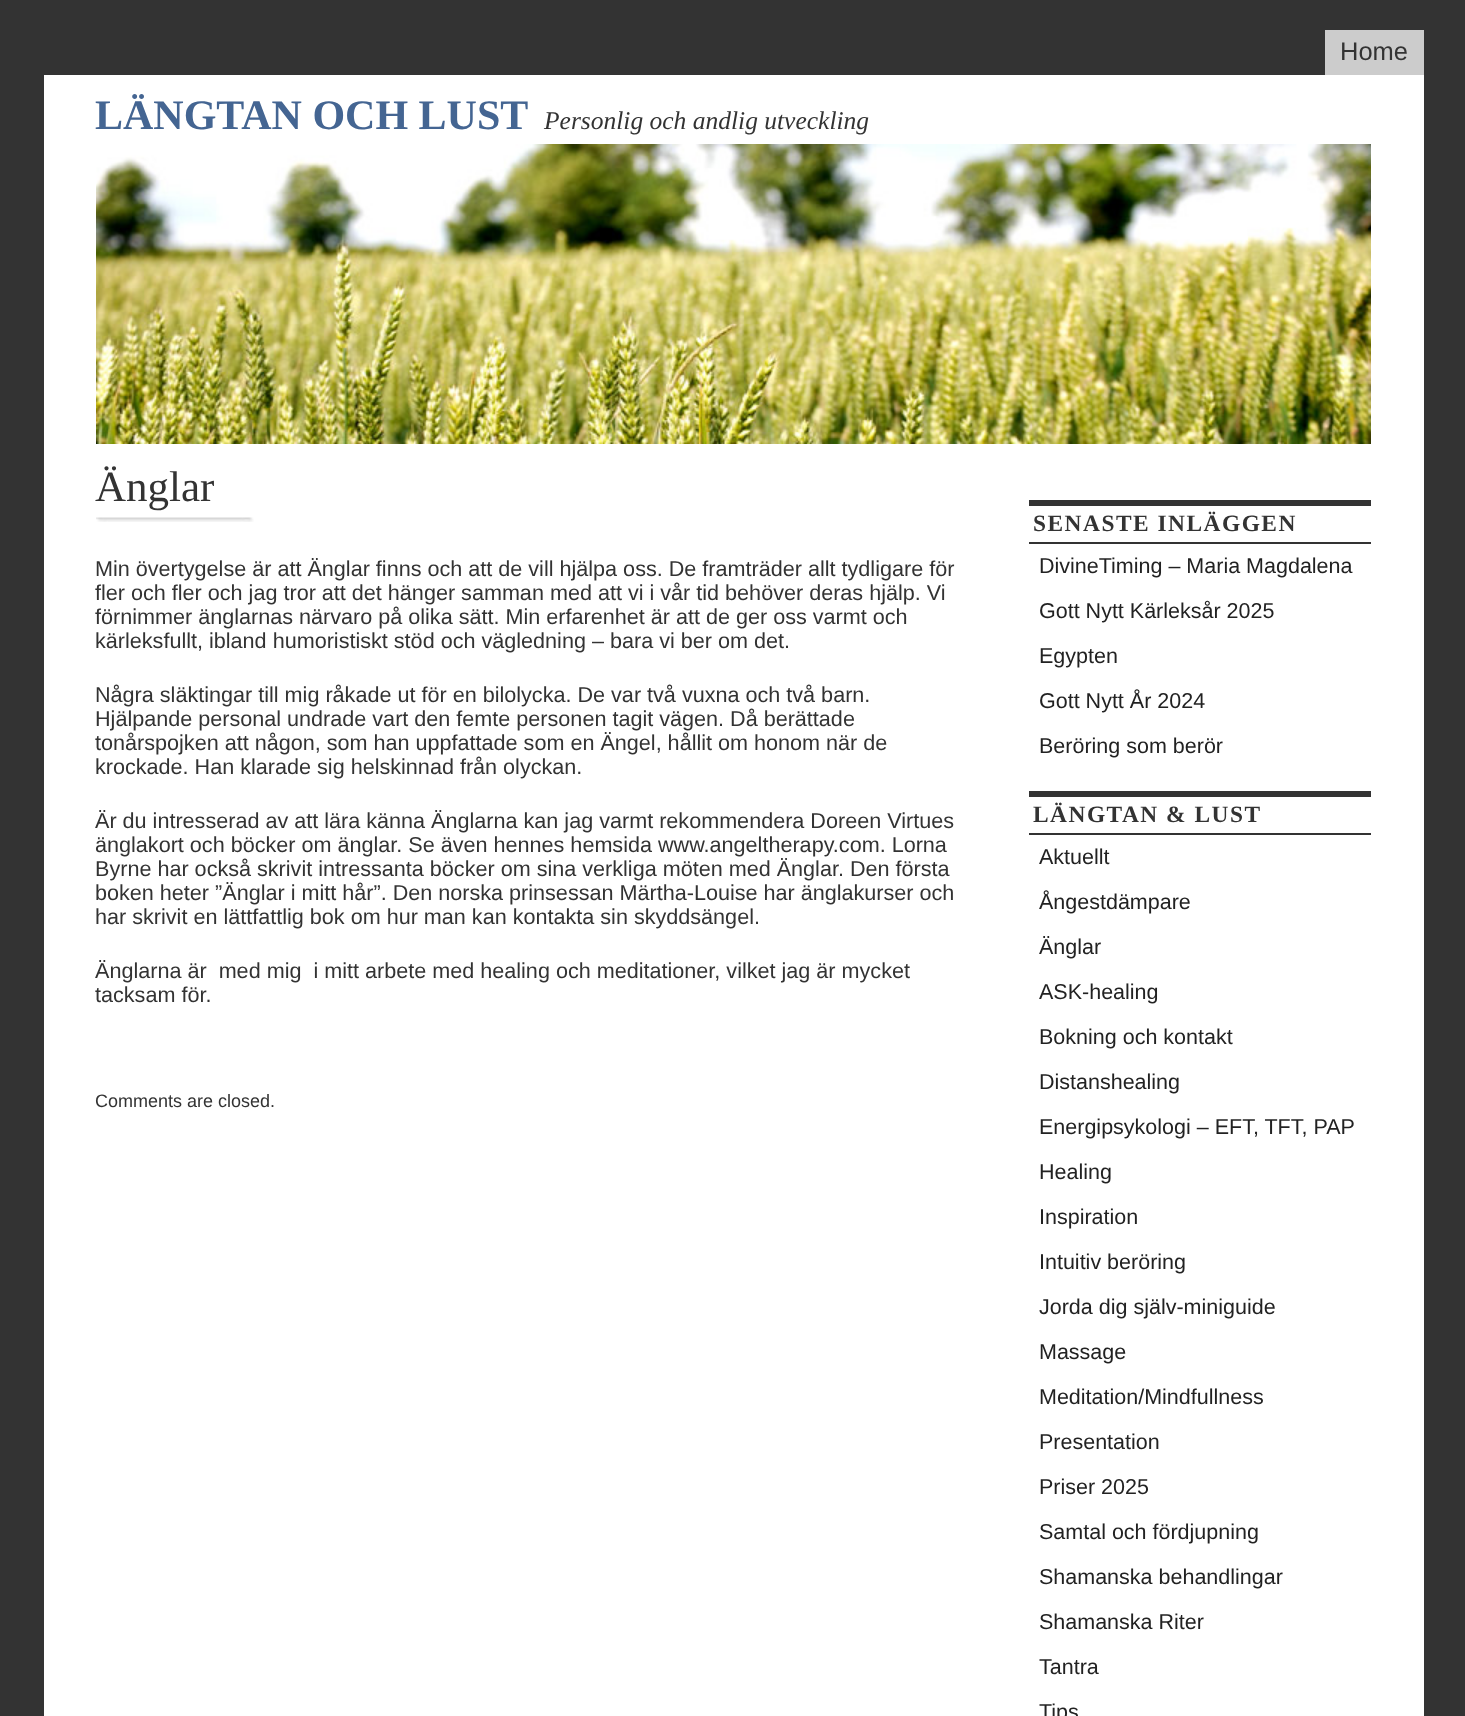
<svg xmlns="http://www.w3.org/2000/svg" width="1465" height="1716">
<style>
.a{font:25.5px Liberation Sans;fill:#333}
.b{font:bold 42px Liberation Serif;fill:#446592}
.c{font:italic 25.5px Liberation Serif;fill:#333}
.d{font:43px Liberation Serif;fill:#333}
.e{font:21.6px Liberation Sans;fill:#333}
.f{font:18px Liberation Sans;fill:#333}
.g{font:bold 23.4px Liberation Serif;letter-spacing:1.5px;fill:#333}
.h{font:21.5px Liberation Sans;fill:#222}
</style>
<rect width="100%" height="100%" fill="#333"/>
<path fill="#ccc" d="M1325 30h99v45H1325z"/>
<path fill="#fff" d="M44 75h1380v1641H44z"/>
<image href="1.png" x="96" y="144" width="1275" height="300"/>
<image href="2.png" x="96" y="517" width="158" height="5"/>
<path fill="#333" d="M1029 500h342v6H1029z"/>
<path fill="#333" d="M1029 542h342v2H1029z"/>
<path fill="#333" d="M1029 791h342v6H1029z"/>
<path fill="#333" d="M1029 833h342v2H1029z"/>
<text class="a" x="1340" y="60">Home</text>
<text class="b" x="95" y="129">LÄNGTAN OCH LUST</text>
<text class="c" x="544" y="129">Personlig och andlig utveckling</text>
<text class="d" x="95" y="501">Änglar</text>
<text class="e" x="95" y="576">Min övertygelse är att Änglar finns och att de vill hjälpa oss. De framträder allt tydligare för</text>
<text class="e" x="95" y="600">fler och fler och jag tror att det hänger samman med att vi i vår tid behöver deras hjälp. Vi</text>
<text class="e" x="95" y="624">förnimmer änglarnas närvaro på olika sätt. Min erfarenhet är att de ger oss varmt och</text>
<text class="e" x="95" y="648">kärleksfullt, ibland humoristiskt stöd och vägledning – bara vi ber om det.</text>
<text class="e" x="95" y="702">Några släktingar till mig råkade ut för en bilolycka. De var två vuxna och två barn.</text>
<text class="e" x="95" y="726">Hjälpande personal undrade vart den femte personen tagit vägen. Då berättade</text>
<text class="e" x="95" y="750">tonårspojken att någon, som han uppfattade som en Ängel, hållit om honom när de</text>
<text class="e" x="95" y="774">krockade. Han klarade sig helskinnad från olyckan.</text>
<text class="e" x="95" y="828">Är du intresserad av att lära känna Änglarna kan jag varmt rekommendera Doreen Virtues</text>
<text class="e" x="95" y="852">änglakort och böcker om änglar. Se även hennes hemsida www.angeltherapy.com. Lorna</text>
<text class="e" x="95" y="876">Byrne har också skrivit intressanta böcker om sina verkliga möten med Änglar. Den första</text>
<text class="e" x="95" y="900">boken heter ”Änglar i mitt hår”. Den norska prinsessan Märtha-Louise har änglakurser och</text>
<text class="e" x="95" y="924">har skrivit en lättfattlig bok om hur man kan kontakta sin skyddsängel.</text>
<text class="e" xml:space="preserve" x="95" y="978">Änglarna är  med mig  i mitt arbete med healing och meditationer, vilket jag är mycket</text>
<text class="e" x="95" y="1002">tacksam för.</text>
<text class="f" x="95" y="1107">Comments are closed.</text>
<text class="g" x="1033" y="531">SENASTE INLÄGGEN</text>
<text class="h" x="1039" y="573">DivineTiming – Maria Magdalena</text>
<text class="h" x="1039" y="618">Gott Nytt Kärleksår 2025</text>
<text class="h" x="1039" y="663">Egypten</text>
<text class="h" x="1039" y="708">Gott Nytt År 2024</text>
<text class="h" x="1039" y="753">Beröring som berör</text>
<text class="g" x="1033" y="822">LÄNGTAN &amp; LUST</text>
<text class="h" x="1039" y="864">Aktuellt</text>
<text class="h" x="1039" y="909">Ångestdämpare</text>
<text class="h" x="1039" y="954">Änglar</text>
<text class="h" x="1039" y="999">ASK-healing</text>
<text class="h" x="1039" y="1044">Bokning och kontakt</text>
<text class="h" x="1039" y="1089">Distanshealing</text>
<text class="h" x="1039" y="1134">Energipsykologi – EFT, TFT, PAP</text>
<text class="h" x="1039" y="1179">Healing</text>
<text class="h" x="1039" y="1224">Inspiration</text>
<text class="h" x="1039" y="1269">Intuitiv beröring</text>
<text class="h" x="1039" y="1314">Jorda dig själv-miniguide</text>
<text class="h" x="1039" y="1359">Massage</text>
<text class="h" x="1039" y="1404">Meditation/Mindfullness</text>
<text class="h" x="1039" y="1449">Presentation</text>
<text class="h" x="1039" y="1494">Priser 2025</text>
<text class="h" x="1039" y="1539">Samtal och fördjupning</text>
<text class="h" x="1039" y="1584">Shamanska behandlingar</text>
<text class="h" x="1039" y="1629">Shamanska Riter</text>
<text class="h" x="1039" y="1674">Tantra</text>
<text class="h" x="1039" y="1719">Tips</text>
</svg>
